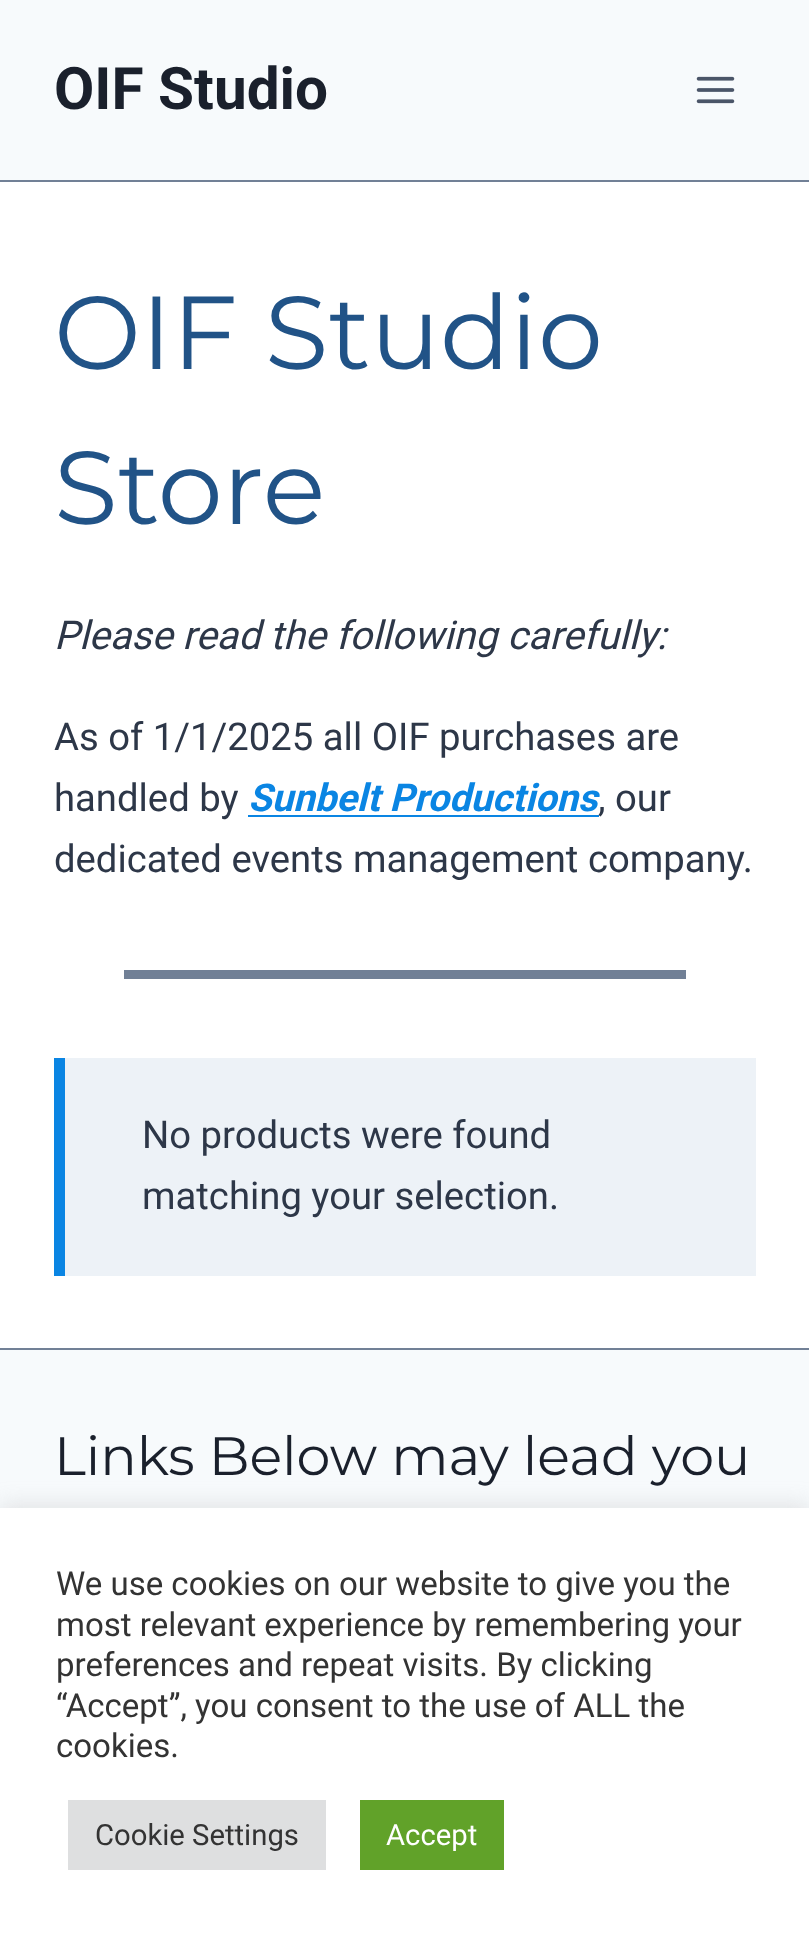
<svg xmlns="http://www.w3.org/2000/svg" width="809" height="1937">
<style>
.a{font:bold 58.5px Roboto;fill:#1a202c}
.b{font:103.5px Montserrat;fill:#215387}
.c{font:italic 39.6px Roboto;fill:#2d3748}
.d{font:38.25px Roboto;fill:#2d3748}
.e{font:italic bold 38.25px Roboto;fill:#0a85e3}
.f{font:54px Montserrat;fill:#1a202c}
.g{font:33px Roboto;fill:#333}
.h{font:29.25px Roboto;fill:#333}
.i{font:29.25px Roboto;fill:#fff}
</style>
<rect width="100%" height="100%" fill="#fff"/>
<path fill="#f7fafc" d="M0 0h809v180H0z"/>
<path fill="#718096" d="M0 180h809v2H0z"/>
<image href="1.png" x="696" y="76" width="39" height="28"/>
<path fill="#0a85e3" d="M248 815h351v2H248z"/>
<path fill="#718096" d="M124 970h562v9H124z"/>
<path fill="#edf2f7" d="M65 1058h691v218H65z"/>
<path fill="#0a85e3" d="M54 1058h11v218H54z"/>
<path fill="#f7fafc" d="M0 1350h809v158H0z"/>
<path fill="#718096" d="M0 1348h809v2H0z"/>
<path fill="#acabab4d" filter="blur(11px)" d="M0 1505h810v430H0z"/>
<path fill="#fff" d="M0 1508h809v429H0z"/>
<path fill="#dedfe0" d="M68 1800h258v70H68z"/>
<path fill="#61a229" d="M360 1800h144v70H360z"/>
<text class="a" x="54" y="109">OIF Studio</text>
<text class="b" x="54" y="369">OIF Studio</text>
<text class="b" x="54" y="524">Store</text>
<text class="c" x="54" y="649">Please read the following carefully:</text>
<text class="d" x="54" y="750">As of 1/1/2025 all OIF purchases are</text>
<text class="d" x="54" y="811">handled by</text>
<text class="e" x="248" y="811">Sunbelt Productions</text>
<text class="d" x="598" y="811">, our</text>
<text class="d" x="54" y="872">dedicated events management company.</text>
<text class="d" x="142" y="1148">No products were found</text>
<text class="d" x="142" y="1209">matching your selection.</text>
<text class="f" x="54" y="1475">Links Below may lead you</text>
<text class="g" x="56" y="1595">We use cookies on our website to give you the</text>
<text class="g" x="56" y="1636">most relevant experience by remembering your</text>
<text class="g" x="56" y="1676">preferences and repeat visits. By clicking</text>
<text class="g" x="56" y="1717">“Accept”, you consent to the use of ALL the</text>
<text class="g" x="56" y="1757">cookies.</text>
<text class="h" x="95" y="1845">Cookie Settings</text>
<text class="i" x="386" y="1845">Accept</text>
</svg>
